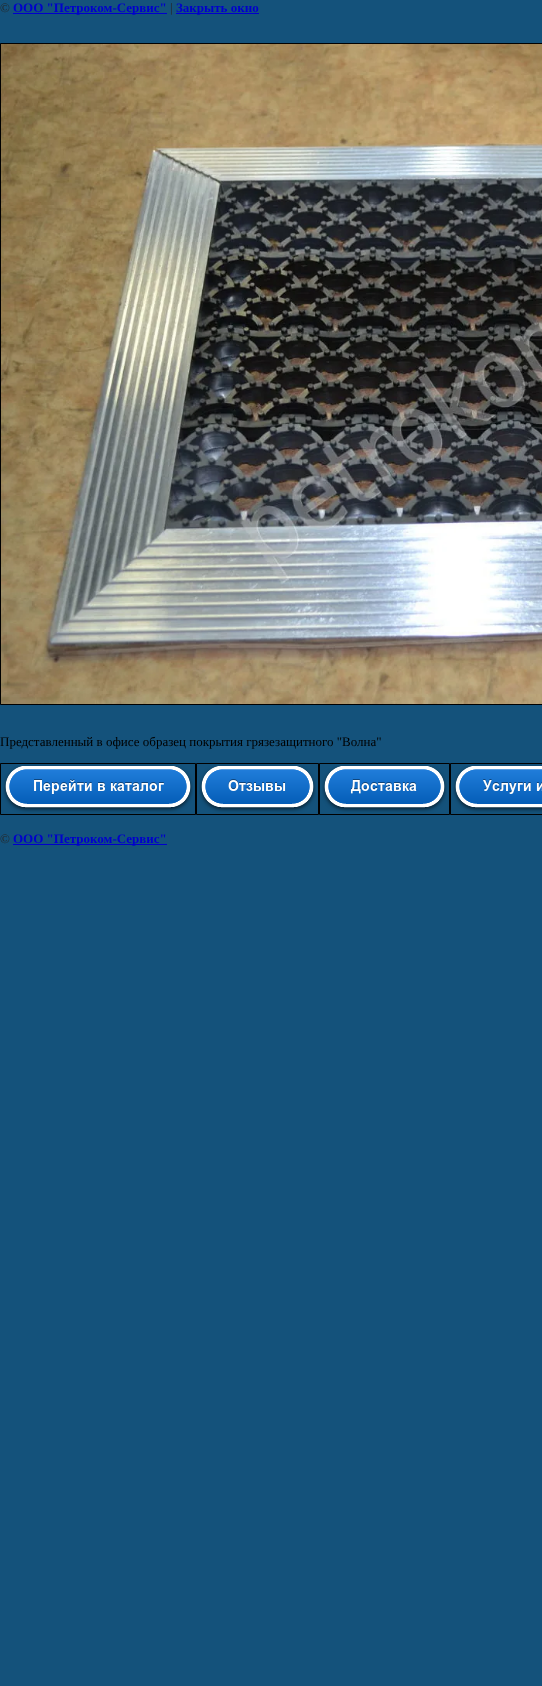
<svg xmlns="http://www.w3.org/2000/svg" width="542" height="1686">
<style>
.a{font:13px Liberation Serif;fill:#272626}
.b{font:bold 13px Liberation Serif;fill:#00c}
.c{font:13px Liberation Serif;fill:#000}
</style>
<rect width="100%" height="100%" fill="#14527b"/>
<path fill="#00c" d="M13 13h154v1H13z"/>
<path fill="#00c" d="M176 13h83v1H176z"/>
<path fill="none" stroke="#000" d="M0.5 43.5h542v661H0.5z"/>
<image href="1.png" x="1" y="44" width="541" height="660"/>
<path fill="none" stroke="#000" d="M0.5 763.5h195v51H0.5z"/>
<path fill="none" stroke="#000" d="M196.5 763.5h122v51H196.5z"/>
<path fill="none" stroke="#000" d="M319.5 763.5h130v51H319.5z"/>
<path fill="none" stroke="#000" d="M450.5 763.5h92v51H450.5z"/>
<image href="2.png" x="3" y="765" width="190" height="48"/>
<image href="3.png" x="199" y="765" width="117" height="48"/>
<image href="4.png" x="322" y="765" width="125" height="48"/>
<image href="5.png" x="453" y="765" width="89" height="48"/>
<path fill="#00c" d="M13 844h154v1H13z"/>
<text class="a" x="0" y="12">©</text>
<text class="b" x="13" y="12">ООО "Петроком-Сервис"</text>
<text class="a" x="170" y="12">|</text>
<text class="b" x="176" y="12">Закрыть окно</text>
<text class="c" x="0" y="746">Представленный в офисе образец покрытия грязезащитного "Волна"</text>
<text class="a" x="0" y="843">©</text>
<text class="b" x="13" y="843">ООО "Петроком-Сервис"</text>
</svg>
